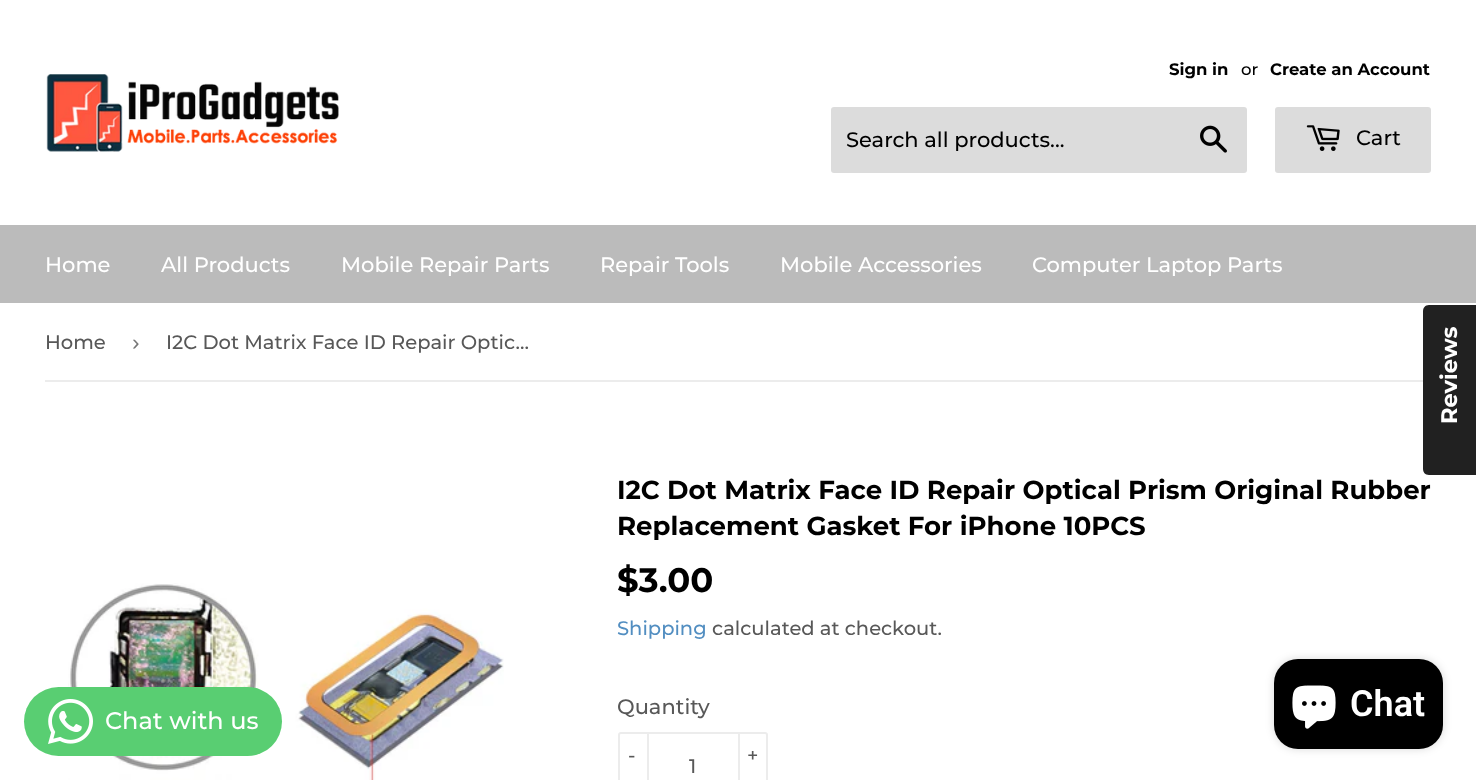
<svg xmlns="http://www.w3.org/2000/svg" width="1476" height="780">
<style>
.a{font:bold 16.5px Montserrat;fill:#000}
.b{font:500 16.5px Montserrat;fill:#000}
.c{font:500 21px Montserrat;fill:#000}
.d{font:500 21px Montserrat;fill:#fff}
.e{font:500 19.5px Montserrat;fill:#585858}
.f{font:22.5px Liberation Sans;fill:#767676}
.g{font:bold 26px Montserrat;fill:#000}
.h{font:bold 34px Montserrat;fill:#000}
.i{font:500 19.5px Montserrat;fill:#528ec1}
.j{font:500 21px Montserrat;fill:#585858}
.k{font:bold 22.5px Montserrat;fill:#fff}
.l{font:600 36px Roboto;fill:#fff}
.m{font:500 24px Montserrat;fill:#fff}
</style>
<rect width="100%" height="100%" fill="#fff"/>
<image href="1.png" x="46" y="74" width="293" height="78"/>
<rect fill="#dcdcdc" x="831" y="107" width="416" height="66" rx="3"/>
<image href="2.png" x="1200" y="125" width="27" height="28"/>
<rect fill="#dcdcdc" x="1275" y="107" width="156" height="66" rx="3"/>
<image href="3.png" x="1306" y="125" width="34" height="26"/>
<path fill="#bbb" d="M0 225h1476v78H0z"/>
<path fill="#ececec" d="M45 380h1386v2H45z"/>
<image href="4.png" x="68" y="583" width="436" height="197"/>
<rect fill="none" stroke="#ececec" stroke-width="2" x="619" y="733" width="148" height="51" rx="2"/>
<path fill="#ececec" d="M647 732h2v48H647z"/>
<path fill="#ececec" d="M738 732h2v48H738z"/>
<path fill="#212121" d="M1423 469v-158c0-3 2-6 6-6h47v170h-47c-4 0-6-3-6-6z"/>
<rect fill="#00000026" filter="blur(4px)" x="1274" y="659" width="169" height="90" rx="24"/>
<rect fill="#000" x="1274" y="659" width="169" height="90" rx="24"/>
<image href="5.png" x="1292" y="685" width="44" height="44"/>
<rect fill="#59ce72" x="24" y="687" width="258" height="69" rx="34.5"/>
<image href="6.png" x="48" y="699" width="45" height="45"/>
<text class="a" x="1169" y="75">Sign in</text>
<text class="b" x="1241" y="75">or</text>
<text class="a" x="1270" y="75">Create an Account</text>
<text class="c" x="846" y="147">Search all products...</text>
<text class="c" x="1356" y="145">Cart</text>
<text class="d" x="45" y="272">Home</text>
<text class="d" x="161" y="272">All Products</text>
<text class="d" x="341" y="272">Mobile Repair Parts</text>
<text class="d" x="600" y="272">Repair Tools</text>
<text class="d" x="780" y="272">Mobile Accessories</text>
<text class="d" x="1032" y="272">Computer Laptop Parts</text>
<text class="e" x="45" y="349">Home</text>
<text class="f" x="132" y="350">›</text>
<text class="e" x="166" y="349">I2C Dot Matrix Face ID Repair Optic…</text>
<text class="g" x="617" y="499">I2C Dot Matrix Face ID Repair Optical Prism Original Rubber</text>
<text class="g" x="617" y="535">Replacement Gasket For iPhone 10PCS</text>
<text class="h" x="617" y="592">$3.00</text>
<text class="i" x="617" y="635">Shipping</text>
<text class="e" x="712" y="635">calculated at checkout.</text>
<text class="j" x="617" y="714">Quantity</text>
<text class="e" x="628" y="762">-</text>
<text class="e" x="747" y="762">+</text>
<text class="e" x="689" y="773">1</text>
<text class="k" x="1457" y="424" transform="rotate(-90 1457 424)">Reviews</text>
<text class="l" x="1350" y="716">Chat</text>
<text class="m" x="105" y="729">Chat with us</text>
</svg>
